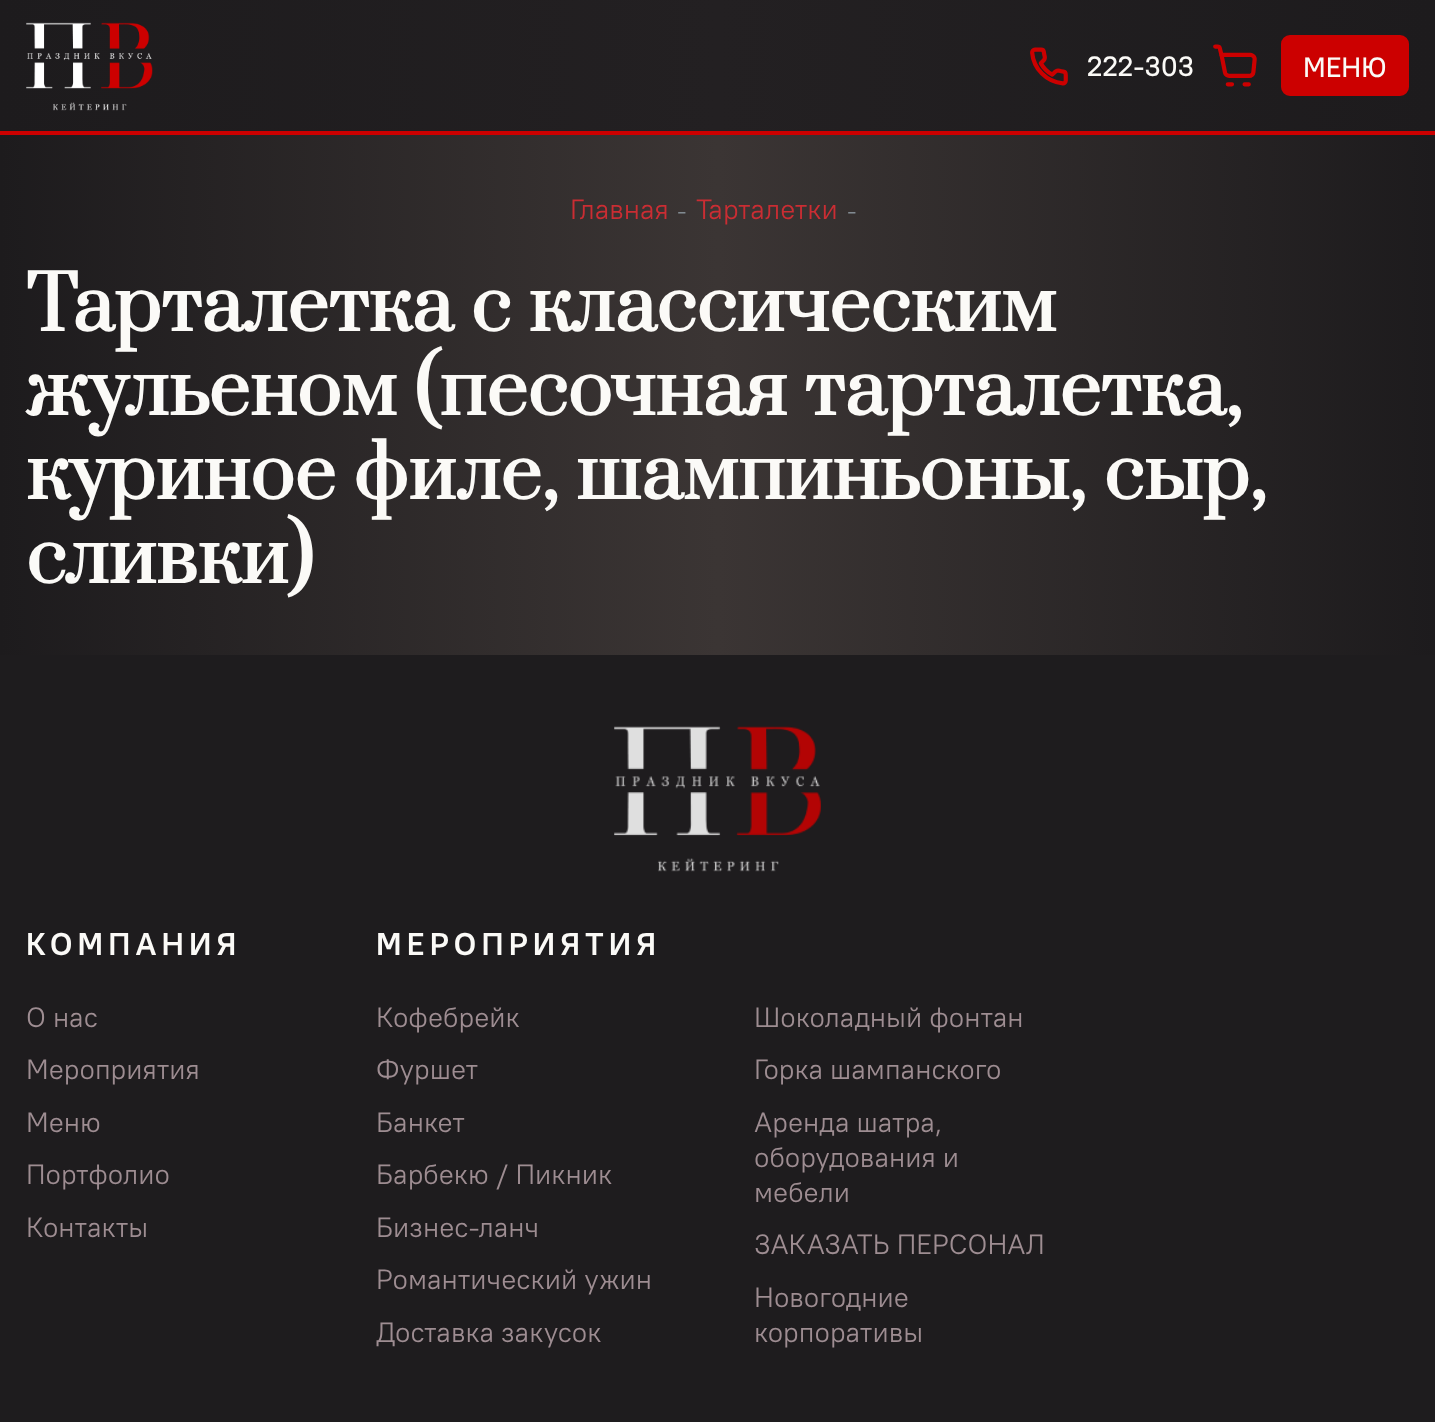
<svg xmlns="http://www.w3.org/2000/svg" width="1435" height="1422">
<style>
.a{font:500 28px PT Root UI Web;fill:#fbfaf7}
.b{font:28px PT Root UI Web;fill:#ca2d33}
.c{font:24px PT Root UI Web;fill:#818a91}
.d{font:bold 73.5px Prata;fill:#fbfaf7}
.e{font:bold 31.5px PT Root UI Web;letter-spacing:5.25px;fill:#fbfaf7}
.f{font:28px PT Root UI Web;fill:#9e8d92}
</style>
<defs>
<linearGradient id="g1" gradientUnits="userSpaceOnUse" x1="0" y1="711" x2="1435" y2="711"><stop offset="0" stop-color="#1d1b1d"/><stop offset="0.5" stop-color="#3b3534"/><stop offset="1" stop-color="#1d1b1d"/></linearGradient>
<linearGradient id="g2" gradientUnits="userSpaceOnUse" x1="0" y1="711" x2="1435" y2="711"><stop offset="0" stop-color="#1d1b1d"/><stop offset="0.5" stop-color="#232022"/><stop offset="1" stop-color="#1d1b1d"/></linearGradient>
</defs>
<rect width="100%" height="100%" fill="#fff"/>
<path fill="url(#g1)" d="M0 135h1435v520H0z"/>
<path fill="url(#g2)" d="M0 0h1435v131H0z"/>
<path fill="#c00" d="M0 131h1435v4H0z"/>
<image href="1.png" x="26" y="22" width="127" height="89"/>
<image href="2.png" x="1030" y="47" width="38" height="39"/>
<image href="3.png" x="1213" y="44" width="44" height="43"/>
<rect fill="#c00" stroke="#c00" stroke-width="2" x="1282" y="36" width="126" height="59" rx="8"/>
<path fill="#1e1c1e" d="M0 655h1435v767H0z"/>
<image href="4.png" x="614" y="726" width="207" height="146"/>
<text class="a" x="1087" y="76">222-303</text>
<text class="a" x="1303" y="77">МЕНЮ</text>
<text class="b" x="570" y="219">Главная</text>
<text class="c" x="677" y="219">-</text>
<text class="b" x="696" y="219">Тарталетки</text>
<text class="c" x="847" y="219">-</text>
<text class="d" x="26" y="331">Тарталетка с классическим</text>
<text class="d" x="26" y="415">жульеном (песочная тарталетка,</text>
<text class="d" x="26" y="499">куриное филе, шампиньоны, сыр,</text>
<text class="d" x="26" y="583">сливки)</text>
<text class="e" x="26" y="955">КОМПАНИЯ</text>
<text class="f" x="26" y="1027">О нас</text>
<text class="f" x="26" y="1079">Мероприятия</text>
<text class="f" x="26" y="1132">Меню</text>
<text class="f" x="26" y="1184">Портфолио</text>
<text class="f" x="26" y="1237">Контакты</text>
<text class="e" x="376" y="955">МЕРОПРИЯТИЯ</text>
<text class="f" x="376" y="1027">Кофебрейк</text>
<text class="f" x="754" y="1027">Шоколадный фонтан</text>
<text class="f" x="376" y="1079">Фуршет</text>
<text class="f" x="754" y="1079">Горка шампанского</text>
<text class="f" x="376" y="1132">Банкет</text>
<text class="f" x="754" y="1132">Аренда шатра,</text>
<text class="f" x="754" y="1167">оборудования и</text>
<text class="f" x="754" y="1202">мебели</text>
<text class="f" x="376" y="1184">Барбекю / Пикник</text>
<text class="f" x="376" y="1237">Бизнес-ланч</text>
<text class="f" x="754" y="1254">ЗАКАЗАТЬ ПЕРСОНАЛ</text>
<text class="f" x="376" y="1289">Романтический ужин</text>
<text class="f" x="376" y="1342">Доставка закусок</text>
<text class="f" x="754" y="1307">Новогодние</text>
<text class="f" x="754" y="1342">корпоративы</text>
</svg>
